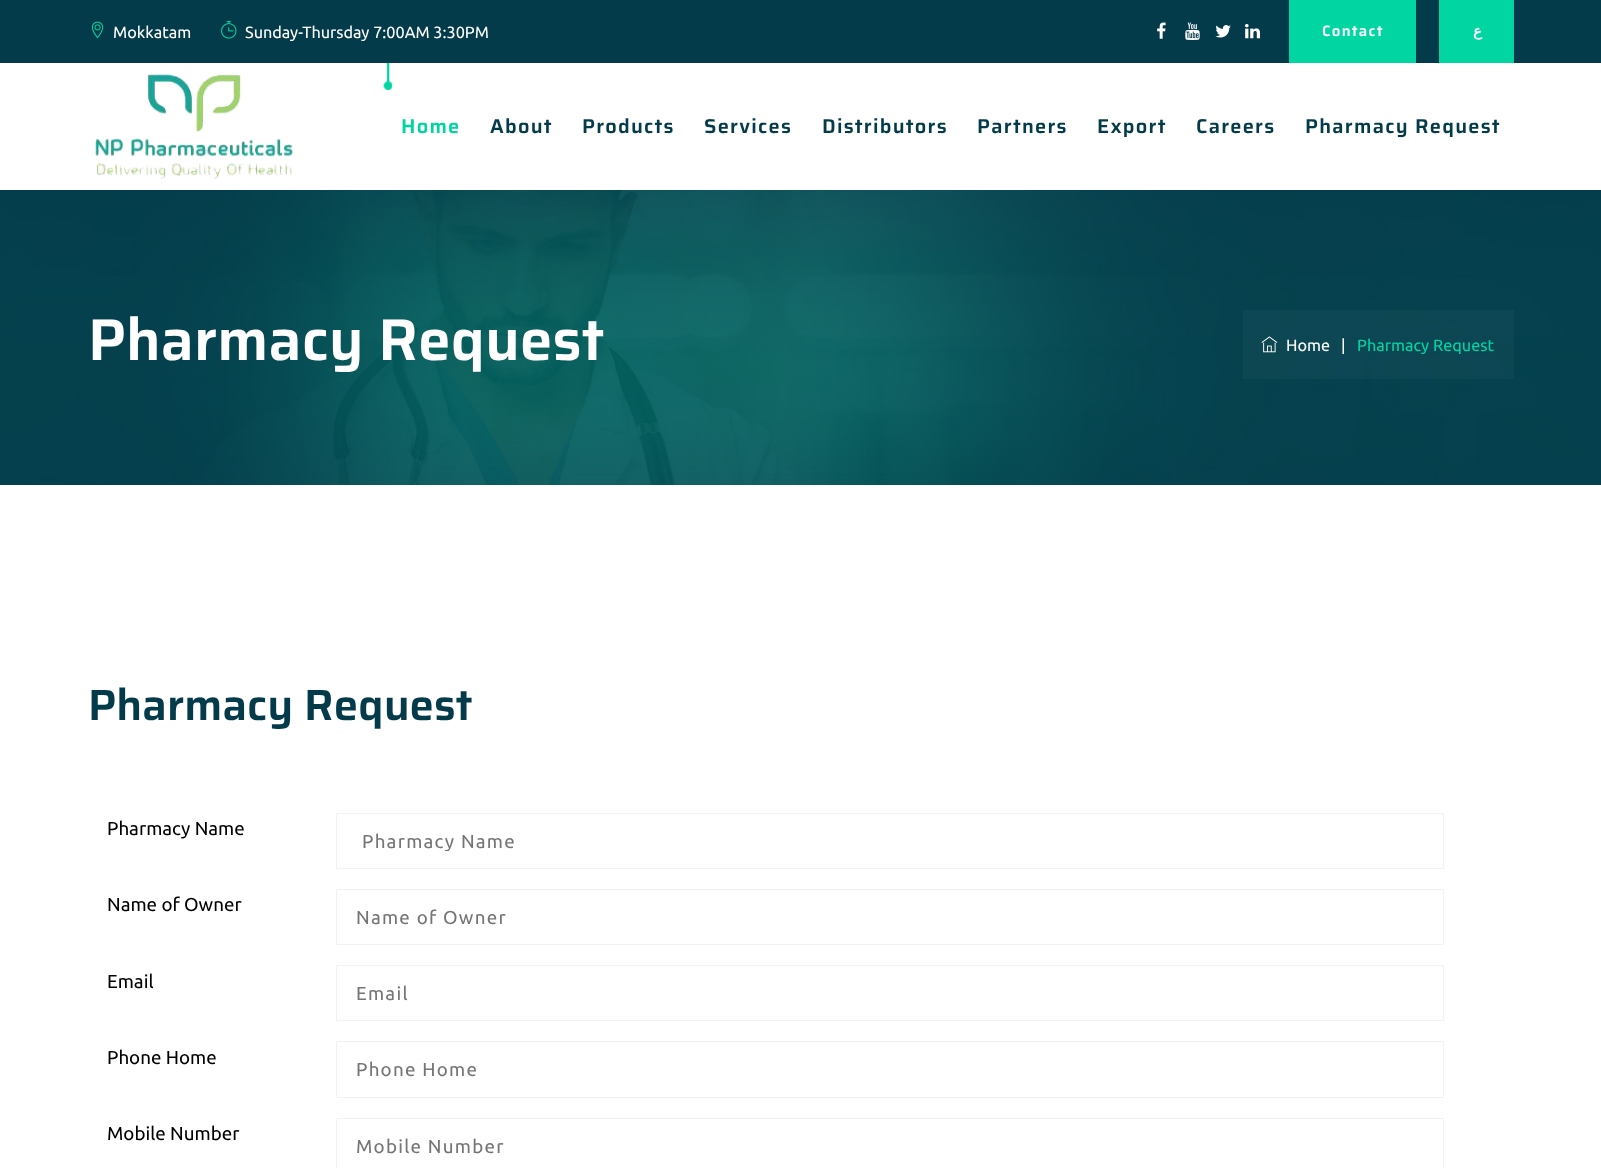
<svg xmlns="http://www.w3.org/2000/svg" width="1601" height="1168">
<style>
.a{font:16.25px Ubuntu;fill:#fff}
.b{font:600 15px Saira;letter-spacing:1.25px;fill:#fff}
.c{font:bold 15px DejaVu Sans;letter-spacing:1.25px;direction:rtl;fill:#fff}
.d{font:600 20px Saira;letter-spacing:1.25px;fill:#01d6a3}
.e{font:600 20px Saira;letter-spacing:1.25px;fill:#033b4a}
.f{font:600 58.75px Saira;fill:#fff}
.g{font:16.25px Ubuntu;fill:#01d6a3}
.h{font:600 43.75px Saira;fill:#033b4a}
.i{font:18.75px Ubuntu;fill:#000}
.j{font:18.75px Ubuntu;letter-spacing:1.25px;fill:#757575}
</style>
<defs>
<clipPath id="clip1"><path d="M356 830h1068v21H356z"/></clipPath>
</defs>
<rect width="100%" height="100%" fill="#033b4a"/>
<image href="1.png" x="91" y="21" width="13" height="18"/>
<image href="2.png" x="221" y="21" width="16" height="18"/>
<image href="3.png" x="1157" y="22" width="9" height="17"/>
<image href="4.png" x="1185" y="22" width="15" height="18"/>
<image href="5.png" x="1215" y="25" width="16" height="13"/>
<image href="6.png" x="1245" y="24" width="15" height="15"/>
<path fill="#01d6a3" d="M1289 0h127v63H1289z"/>
<path fill="#01d6a3" d="M1439 0h75v63H1439z"/>
<path fill="#fff" d="M0 63h1601v127H0z"/>
<image href="7.png" x="95" y="74" width="198" height="106"/>
<image href="8.png" x="383" y="62" width="10" height="28"/>
<image href="9.png" x="0" y="190" width="1601" height="295"/>
<path fill="#ffffff08" d="M1243 310h271v69H1243z"/>
<image href="10.png" x="1261" y="336" width="17" height="17"/>
<path fill="#fff" d="M0 485h1601v683H0z"/>
<path fill="none" stroke="#f2f2f2" d="M336.5 813.5h1107v55H336.5z"/>
<path fill="none" stroke="#f2f2f2" d="M336.5 889.5h1107v55H336.5z"/>
<path fill="none" stroke="#f2f2f2" d="M336.5 965.5h1107v55H336.5z"/>
<path fill="none" stroke="#f2f2f2" d="M336.5 1041.5h1107v56H336.5z"/>
<path fill="none" stroke="#f2f2f2" d="M336.5 1118.5h1107v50H336.5z"/>
<text class="a" x="113" y="38">Mokkatam</text>
<text class="a" x="245" y="38">Sunday-Thursday 7:00AM 3:30PM</text>
<text class="b" x="1322" y="36">Contact</text>
<text class="c" x="1482" y="36">ع</text>
<text class="d" x="401" y="133">Home</text>
<text class="e" x="490" y="133">About</text>
<text class="e" x="582" y="133">Products</text>
<text class="e" x="704" y="133">Services</text>
<text class="e" x="822" y="133">Distributors</text>
<text class="e" x="977" y="133">Partners</text>
<text class="e" x="1097" y="133">Export</text>
<text class="e" x="1196" y="133">Careers</text>
<text class="e" x="1305" y="133">Pharmacy Request</text>
<text class="f" x="88" y="360">Pharmacy Request</text>
<text class="a" x="1286" y="351">Home</text>
<text class="a" x="1341" y="351">|</text>
<text class="g" x="1357" y="351">Pharmacy Request</text>
<text class="h" x="88" y="720">Pharmacy Request</text>
<text class="i" x="107" y="835">Pharmacy Name</text>
<g clip-path="url(#clip1)">
<text class="j" x="362" y="848">Pharmacy Name</text>
</g>
<text class="i" x="107" y="911">Name of Owner</text>
<text class="j" x="356" y="924">Name of Owner</text>
<text class="i" x="107" y="988">Email</text>
<text class="j" x="356" y="1000">Email</text>
<text class="i" x="107" y="1064">Phone Home</text>
<text class="j" x="356" y="1076">Phone Home</text>
<text class="i" x="107" y="1140">Mobile Number</text>
<text class="j" x="356" y="1153">Mobile Number</text>
</svg>
